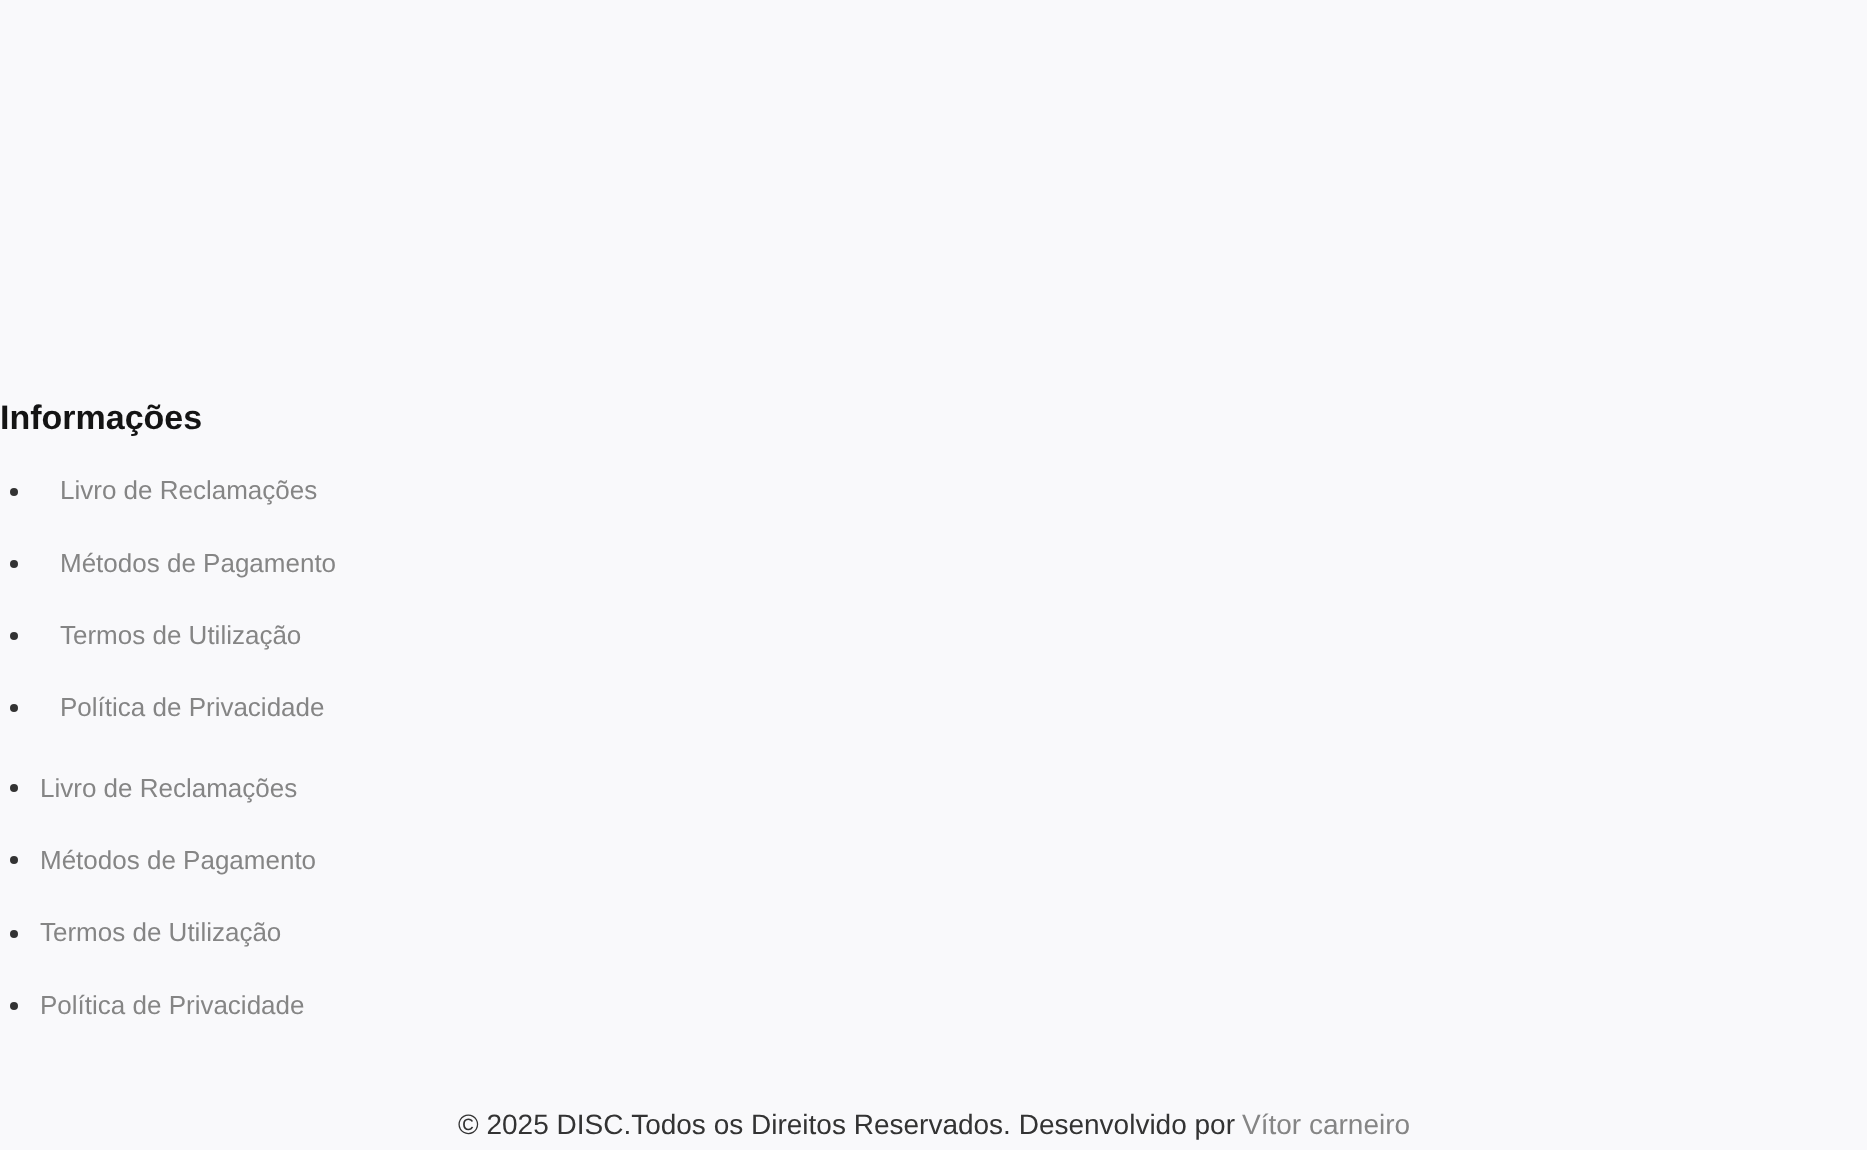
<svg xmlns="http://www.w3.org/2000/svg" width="1867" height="1150">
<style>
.a{font:bold 34px Liberation Sans;fill:#141414}
.b{font:26px Liberation Sans;fill:#858585}
.c{font:28px Liberation Sans;fill:#333}
.d{font:28px Liberation Sans;fill:#858585}
</style>
<rect width="100%" height="100%" fill="#f9f9fb"/>
<circle fill="#333" cx="14" cy="492" r="4"/>
<circle fill="#333" cx="14" cy="564" r="4"/>
<circle fill="#333" cx="14" cy="636" r="4"/>
<circle fill="#333" cx="14" cy="708" r="4"/>
<circle fill="#333" cx="14" cy="788" r="4"/>
<circle fill="#333" cx="14" cy="860" r="4"/>
<circle fill="#333" cx="14" cy="934" r="4"/>
<circle fill="#333" cx="14" cy="1006" r="4"/>
<text class="a" x="0" y="429">Informações</text>
<text class="b" x="60" y="499">Livro de Reclamações</text>
<text class="b" x="60" y="572">Métodos de Pagamento</text>
<text class="b" x="60" y="644">Termos de Utilização</text>
<text class="b" x="60" y="716">Política de Privacidade</text>
<text class="b" x="40" y="797">Livro de Reclamações</text>
<text class="b" x="40" y="869">Métodos de Pagamento</text>
<text class="b" x="40" y="941">Termos de Utilização</text>
<text class="b" x="40" y="1014">Política de Privacidade</text>
<text class="c" x="458" y="1134">© 2025 DISC.Todos os Direitos Reservados. Desenvolvido por</text>
<text class="d" x="1242" y="1134">Vítor carneiro</text>
</svg>
